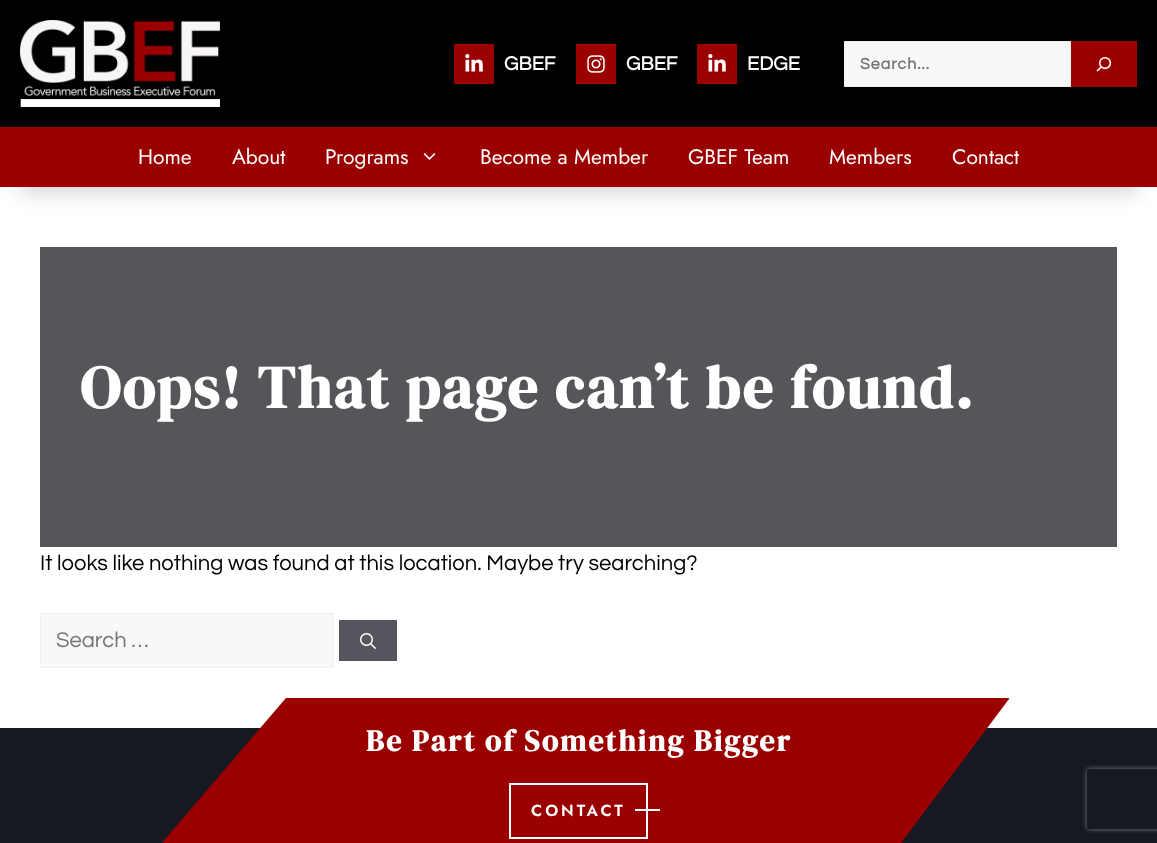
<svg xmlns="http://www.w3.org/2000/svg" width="1157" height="843">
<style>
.a{font:bold 20px Questrial;fill:#fff}
.b{font:bold 16px Questrial;letter-spacing:1px;fill:#757575}
.c{font:21px Jost;fill:#fff}
.d{font:bold 60px DM Serif Display;letter-spacing:2px;fill:#fff}
.e{font:22px Questrial;fill:#000}
.f{font:22px Questrial;fill:#757575}
.g{font:bold 30px DM Serif Display;letter-spacing:2px;fill:#fff}
.h{font:600 16px Jost;letter-spacing:3px;fill:#fff}
</style>
<defs>
<clipPath id="clip1"><path d="M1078 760h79v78h-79zm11 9h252c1 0 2 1 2 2v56c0 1-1 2-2 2h-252c-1 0-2-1-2-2v-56c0-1 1-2 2-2z" clip-rule="evenodd"/></clipPath>
</defs>
<rect width="100%" height="100%" fill="#fff"/>
<path fill="#000" d="M0 0h1157v127H0z"/>
<image href="1.png" x="20" y="20" width="200" height="87"/>
<path fill="#9a0000" d="M454 44h40v40H454z"/>
<image href="2.png" x="465" y="54" width="18" height="18"/>
<path fill="#9a0000" d="M576 44h40v40H576z"/>
<image href="3.png" x="587" y="55" width="18" height="18"/>
<path fill="#9a0000" d="M697 44h40v40H697z"/>
<image href="2.png" x="708" y="54" width="18" height="18"/>
<path fill="#f7f8f9" stroke="#f0f0f0" d="M844.5 41.5h226v45H844.5z"/>
<path fill="#9a0000" d="M1071 41h66v46H1071z"/>
<image href="4.png" x="1096" y="57" width="16" height="15"/>
<path fill="#00000030" filter="blur(10px)" d="M20 172h1117v20H20z"/>
<path fill="#9a0000" d="M0 127h1157v60H0z"/>
<image href="5.png" x="423" y="153" width="13" height="7"/>
<path fill="#545659" d="M40 247h1077v300H40z"/>
<path fill="#f7f8f9" stroke="#f0f0f0" d="M40.5 613.5h293v54H40.5z"/>
<path fill="#55555e" d="M339 620h58v41H339z"/>
<image href="6.png" x="360" y="633" width="16" height="16"/>
<path fill="#161921" d="M0 728h1157v115H0z"/>
<path fill="#9a0000" d="M286 698h723v1l-120 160h-741z"/>
<path fill="none" stroke="#fff" stroke-width="2" d="M510 784h137v54H510z"/>
<path fill="#fff" d="M635 809h25v2H635z"/>
<g clip-path="url(#clip1)">
<rect fill="#808080" filter="blur(2.5px)" x="1087" y="769" width="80" height="60" rx="2"/>
</g>
<text class="a" x="504" y="70">GBEF</text>
<text class="a" x="626" y="70">GBEF</text>
<text class="a" x="747" y="70">EDGE</text>
<text class="b" x="860" y="69">Search...</text>
<text class="c" x="138" y="164">Home</text>
<text class="c" x="232" y="164">About</text>
<text class="c" x="325" y="164">Programs</text>
<text class="c" x="480" y="164">Become a Member</text>
<text class="c" x="688" y="164">GBEF Team</text>
<text class="c" x="829" y="164">Members</text>
<text class="c" x="952" y="164">Contact</text>
<text class="d" x="80" y="408">Oops! That page can’t be found.</text>
<text class="e" x="40" y="570">It looks like nothing was found at this location. Maybe try searching?</text>
<text class="f" x="56" y="647">Search …</text>
<text class="g" x="366" y="751">Be Part of Something Bigger</text>
<text class="h" x="531" y="816">CONTACT</text>
</svg>
